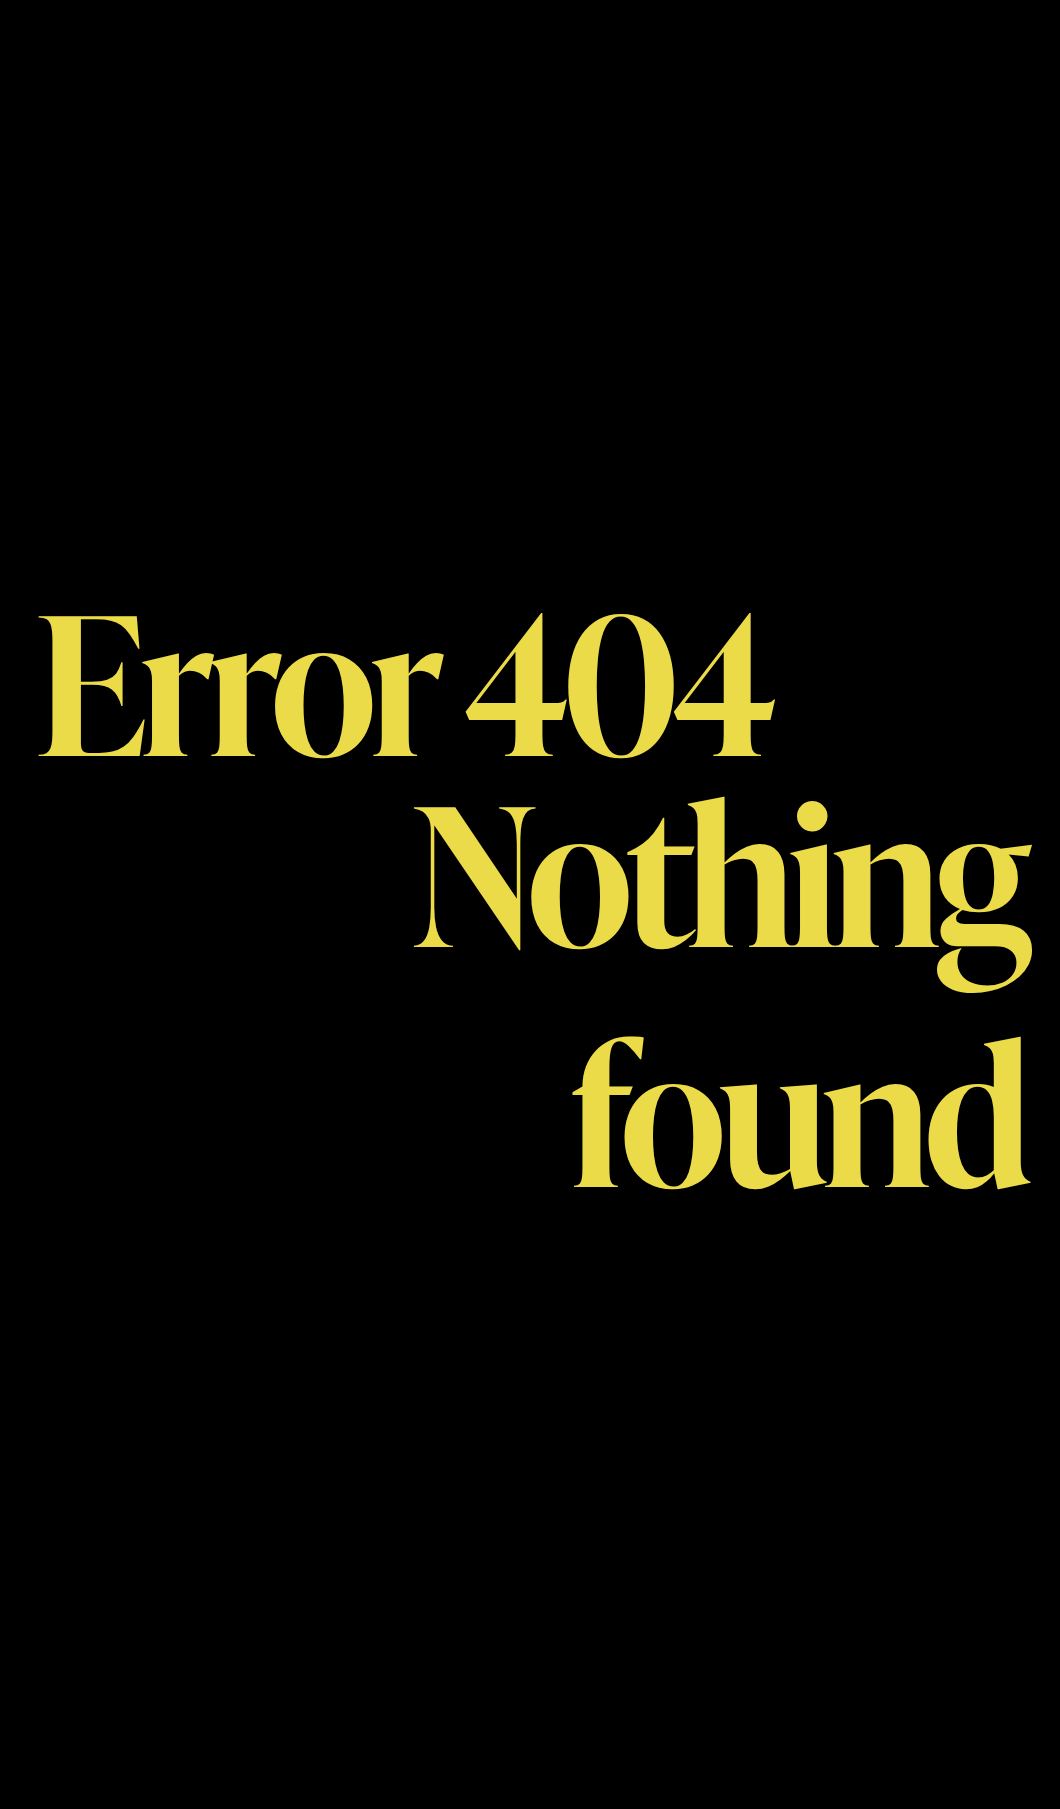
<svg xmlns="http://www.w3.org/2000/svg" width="1060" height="1809">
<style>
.a{font:600 192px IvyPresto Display;letter-spacing:-7.75px;fill:#ebdb49}
</style>
<rect width="100%" height="100%" fill="#000"/>
<text class="a" x="35" y="756">Error 404</text>
<text class="a" x="412" y="947">Nothing</text>
<text class="a" x="570" y="1187">found</text>
</svg>
